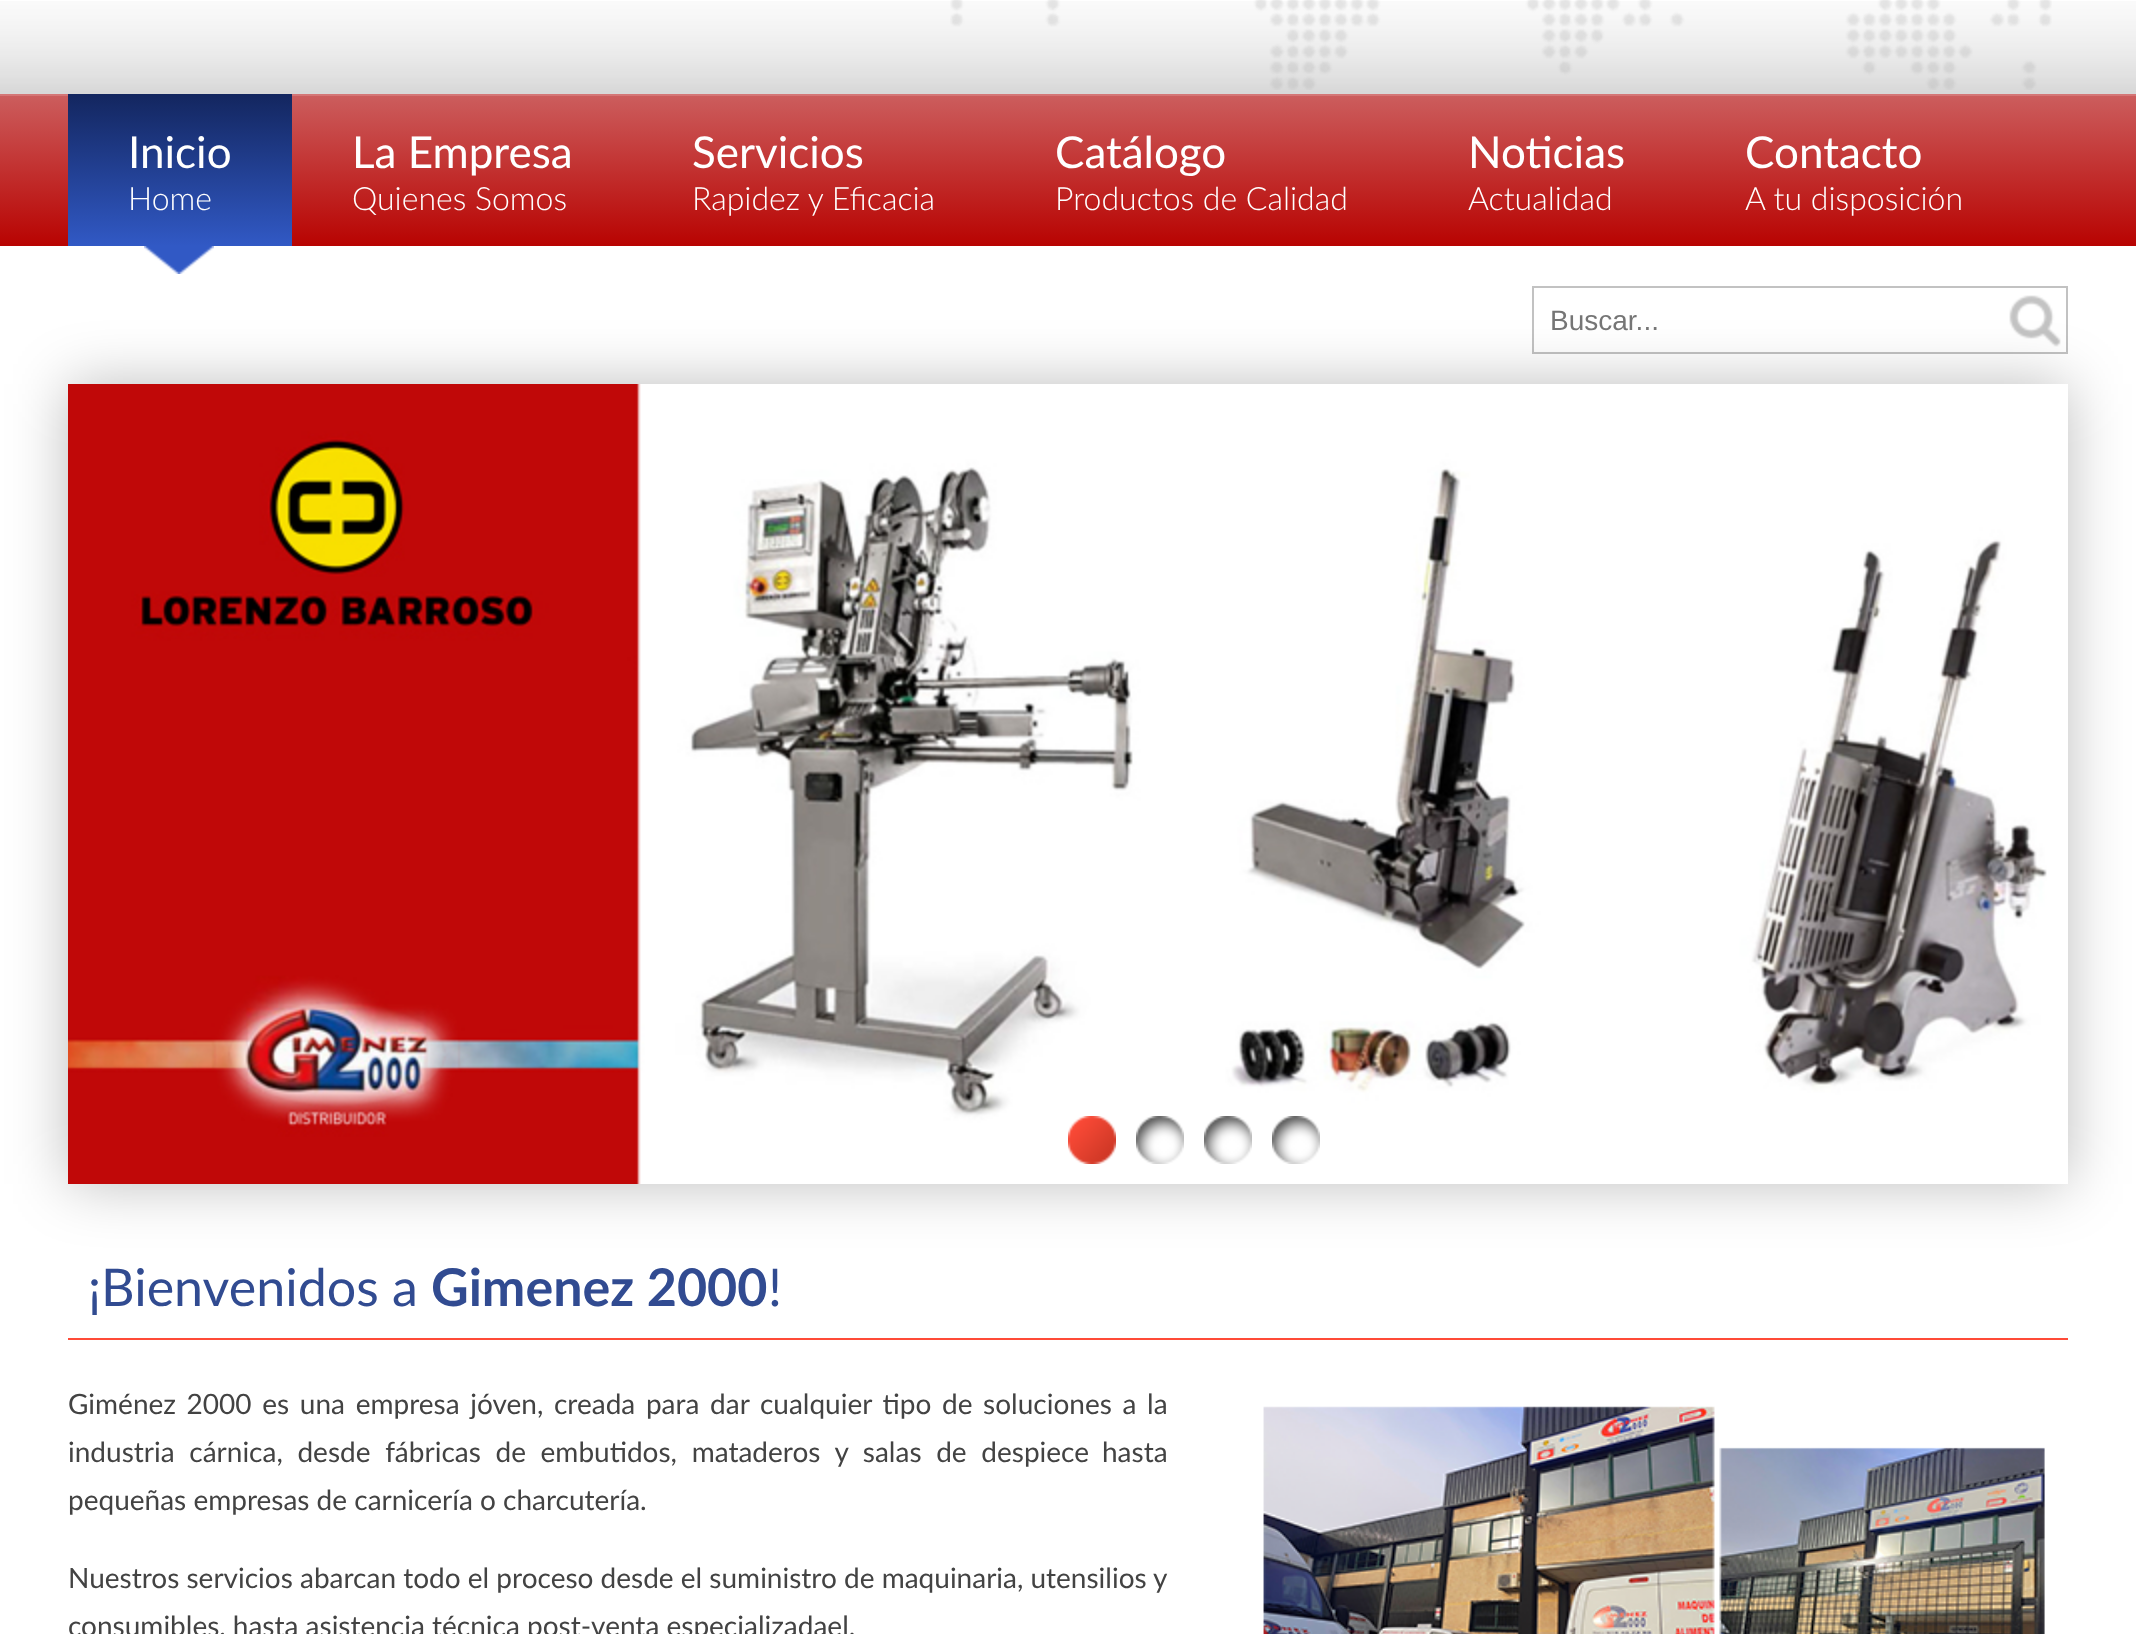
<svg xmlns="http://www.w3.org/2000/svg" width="2136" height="1634">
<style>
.a{font:44px Lato;fill:#fff}
.b{font:300 32px Lato;fill:#fff}
.c{font:28px Liberation Sans;fill:#757575}
.d{font:52px Lato;fill:#314b91}
.e{font:bold 52px Lato;fill:#314b91}
.f{font:28px Lato;fill:#434343}
</style>
<defs>
<linearGradient id="g1" gradientUnits="userSpaceOnUse" x1="1068" y1="94" x2="1068" y2="246"><stop offset="0" stop-color="#cc5e5e"/><stop offset="1" stop-color="#b80301"/></linearGradient>
<linearGradient id="g2" gradientUnits="userSpaceOnUse" x1="180" y1="94" x2="180" y2="246"><stop offset="0" stop-color="#13265f"/><stop offset="1" stop-color="#3159c5"/></linearGradient>
<clipPath id="clip1"><path d="M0 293h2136v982h-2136zm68 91h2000v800h-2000z" clip-rule="evenodd"/></clipPath>
</defs>
<rect width="100%" height="100%" fill="#fff"/>
<image href="1.png" x="0" y="1" width="2136" height="93"/>
<image href="2.png" x="950" y="0" width="1102" height="90"/>
<path fill="url(#g1)" d="M0 96h2136v150H0z"/>
<path fill="#d47676" d="M0 94h2136v2H0z"/>
<path fill="url(#g2)" d="M68 94h224v152H68z"/>
<image href="3.png" x="144" y="246" width="70" height="28"/>
<image href="7.png" x="2009" y="295" width="52" height="52"/>
<path fill="none" stroke="#c2c2c2" stroke-width="2" d="M1533 287h534v66H1533z"/>
<g clip-path="url(#clip1)">
<path fill="#00000042" filter="blur(30px)" d="M68 384h2000v800H68z"/>
</g>
<image href="4.png" x="68" y="384" width="1979" height="800"/>
<image href="5.png" x="1068" y="1116" width="48" height="48"/>
<image href="6.png" x="1136" y="1116" width="48" height="48"/>
<image href="6.png" x="1204" y="1116" width="48" height="48"/>
<image href="6.png" x="1272" y="1116" width="48" height="48"/>
<path fill="#ff4b38" d="M68 1338h2000v2H68z"/>
<image href="8.png" x="1263" y="1406" width="782" height="228"/>
<text class="a" x="128" y="168">Inicio</text>
<text class="b" x="128" y="210">Home</text>
<text class="a" x="352" y="168">La Empresa</text>
<text class="b" x="352" y="210">Quienes Somos</text>
<text class="a" x="692" y="168">Servicios</text>
<text class="b" x="692" y="210">Rapidez y Eficacia</text>
<text class="a" x="1055" y="168">Catálogo</text>
<text class="b" x="1055" y="210">Productos de Calidad</text>
<text class="a" x="1468" y="168">Noticias</text>
<text class="b" x="1468" y="210">Actualidad</text>
<text class="a" x="1745" y="168">Contacto</text>
<text class="b" x="1745" y="210">A tu disposición</text>
<text class="c" x="1550" y="330">Buscar...</text>
<text class="d" x="88" y="1306">¡Bienvenidos a</text>
<text class="e" x="431" y="1306">Gimenez 2000</text>
<text class="d" x="768" y="1306">!</text>
<text class="f" x="68" y="1414" word-spacing="3.5">Giménez 2000 es una empresa jóven, creada para dar cualquier tipo de soluciones a la</text>
<text class="f" x="68" y="1462" word-spacing="7.5">industria cárnica, desde fábricas de embutidos, mataderos y salas de despiece</text>
<text class="f" x="1102" y="1462">hasta</text>
<text class="f" x="68" y="1510">pequeñas empresas de carnicería o charcutería.</text>
<text class="f" x="68" y="1588">Nuestros servicios abarcan todo el proceso desde el suministro de maquinaria, utensilios y</text>
<text class="f" x="68" y="1636">consumibles, hasta asistencia técnica post-venta especializadael.</text>
</svg>
